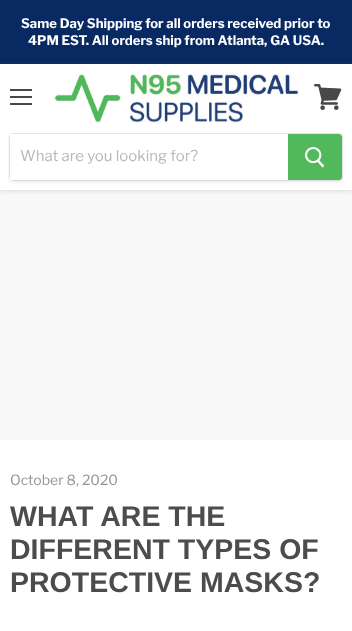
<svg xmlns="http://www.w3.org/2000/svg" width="352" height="631">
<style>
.a{font:bold 13.1px Libre Franklin;fill:#fff}
.b{font:15px Libre Franklin;fill:#b8b8b8}
.c{font:14px Libre Franklin;fill:#949494}
.d{font:bold 28.5px Arimo;fill:#4c4c4c}
</style>
<defs>
<clipPath id="clip1"><path d="M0 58h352v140h-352zm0 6h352v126h-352z" clip-rule="evenodd"/></clipPath>
</defs>
<rect width="100%" height="100%" fill="#fff"/>
<path fill="#092962" d="M0 0h352v64H0z"/>
<path fill="#f8f8f8" d="M0 190h352v250H0z"/>
<g clip-path="url(#clip1)">
<path fill="#80808040" filter="blur(2px)" d="M0 65h352v126H0z"/>
</g>
<path fill="#484848" d="M10 89h22v2H10z"/>
<path fill="#484848" d="M10 96h22v2H10z"/>
<path fill="#484848" d="M10 103h22v2H10z"/>
<image href="1.png" x="314" y="84" width="28" height="26"/>
<image href="2.png" x="54" y="74" width="245" height="49"/>
<rect fill="#8080801c" filter="blur(1.5px)" x="9" y="135" width="334" height="48" rx="4"/>
<rect fill="none" stroke="#80808033" x="9.5" y="133.5" width="333" height="47" rx="3.5"/>
<path fill="#fff" d="M10 134h278v46H10z"/>
<path fill="#51b95b" stroke="#51b95b" d="M288.5 134.5h50.5c1.5 0 2.5 1 2.5 2.5v40c0 1.5-1 2.5-2.5 2.5h-50.5z"/>
<image href="3.png" x="305" y="147" width="20" height="21"/>
<text class="a" x="21" y="28">Same Day Shipping for all orders received prior to</text>
<text class="a" x="28" y="45">4PM EST. All orders ship from Atlanta, GA USA.</text>
<text class="b" x="20" y="161">What are you looking for?</text>
<text class="c" x="10" y="485">October 8, 2020</text>
<text class="d" x="10" y="526">WHAT ARE THE</text>
<text class="d" x="10" y="559">DIFFERENT TYPES OF</text>
<text class="d" x="10" y="592">PROTECTIVE MASKS?</text>
</svg>
